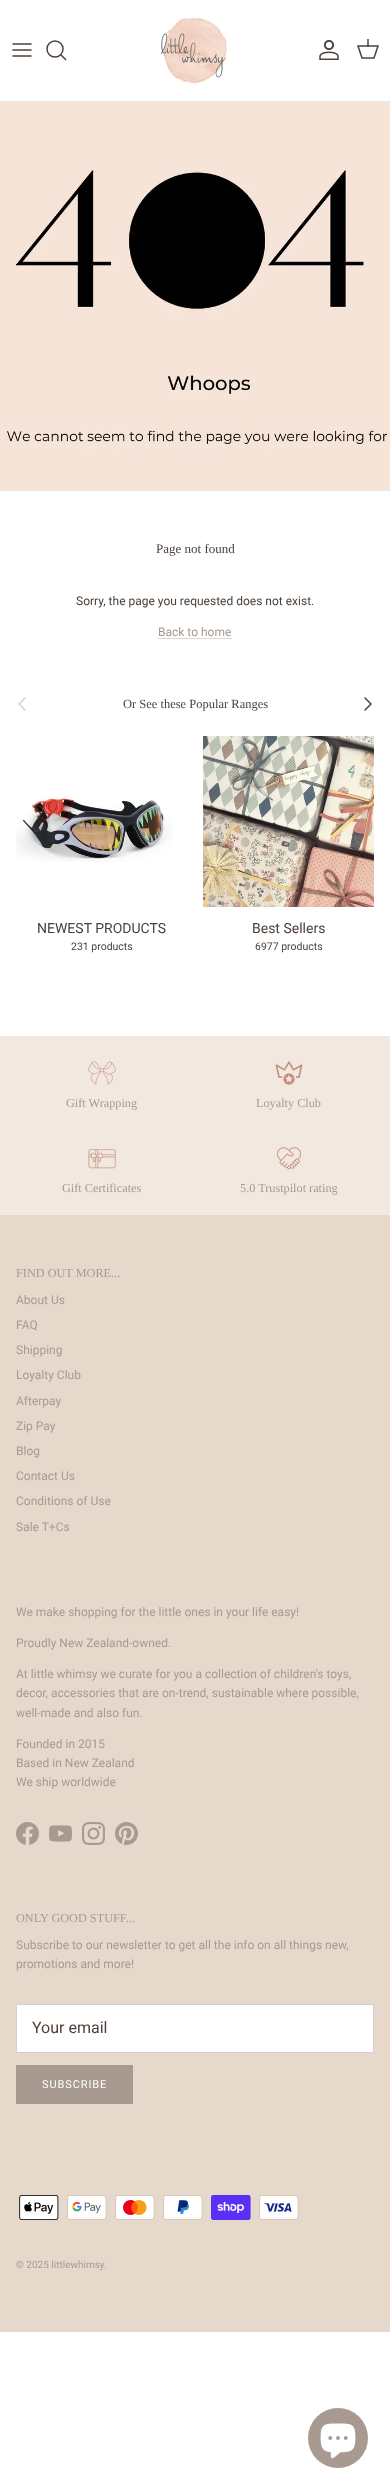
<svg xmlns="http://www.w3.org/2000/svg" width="390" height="2489">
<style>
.a{font:13px Liberation Serif;fill:#4d4139}
.b{font:12px Roboto;fill:#4d4139}
.c{font:12px Roboto;fill:#a89a90}
.d{font:12.5px Liberation Serif;fill:#4d4139}
.e{font:14px Roboto;fill:#4d4139}
.f{font:10.5px Roboto;fill:#4d4139}
.g{font:12.25px Liberation Serif;fill:#a89a90}
.h{font:16px Roboto;fill:#4d4139}
.i{font:11px Roboto;letter-spacing:0.9px;fill:#fff}
.j{font:10px Roboto;fill:#a89a90}
</style>
<rect width="100%" height="100%" fill="#fff"/>
<path fill="none" stroke="#4d4139" stroke-width="1.5" stroke-linecap="round" stroke-linejoin="round" d="M13 50h18m-18-6h18m-18 12h18"/>
<circle fill="none" stroke="#4d4139" stroke-width="1.5" cx="55" cy="49" r="8"/>
<path fill="none" stroke="#4d4139" stroke-width="1.5" stroke-linecap="square" d="M61 55l4.5 4.5"/>
<image href="1.png" x="161" y="18" width="66" height="68"/>
<image href="2.png" x="319" y="40" width="20" height="20"/>
<path fill="none" stroke="#4d4139" stroke-width="1.5" d="M358 46h20l-4 12h-12z"/>
<path fill="#4d4139bf" d="M367 39h2v8H367z"/>
<image href="3.png" x="0" y="101" width="390" height="390"/>
<path fill="#dcd7d3" d="M158 638h74v1H158z"/>
<path fill="none" stroke="#d3d0ce" stroke-width="1.5" stroke-linecap="round" stroke-linejoin="round" d="M25 710l-6-6l6-6"/>
<path fill="none" stroke="#4d4139" stroke-width="1.5" stroke-linecap="round" stroke-linejoin="round" d="M365 710l6-6l-6-6"/>
<image href="4.png" x="16" y="796" width="156" height="66"/>
<image href="5.png" x="203" y="736" width="171" height="171"/>
<path fill="#f1e8df" d="M0 1036h390v179H0z"/>
<image href="6.png" x="88" y="1061" width="28" height="24"/>
<image href="7.png" x="275" y="1061" width="28" height="24"/>
<image href="8.png" x="88" y="1149" width="28" height="20"/>
<image href="9.png" x="276" y="1147" width="26" height="23"/>
<path fill="#e6d9cb" d="M0 1215h390v1117H0z"/>
<image href="10.png" x="16" y="1822" width="23" height="23"/>
<image href="11.png" x="49" y="1825" width="23" height="17"/>
<image href="12.png" x="82" y="1822" width="23" height="23"/>
<image href="13.png" x="115" y="1822" width="23" height="23"/>
<path fill="#fff" stroke="#d3d0ce" d="M16.5 2004.5h357v48H16.5z"/>
<path fill="#a89a90" d="M16 2065h117v39H16z"/>
<image href="14.png" x="19" y="2195" width="40" height="25"/>
<image href="15.png" x="67" y="2195" width="40" height="25"/>
<image href="16.png" x="115" y="2195" width="40" height="25"/>
<image href="17.png" x="163" y="2195" width="40" height="25"/>
<image href="18.png" x="211" y="2195" width="40" height="25"/>
<image href="19.png" x="259" y="2195" width="40" height="25"/>
<circle fill="#a89a90" cx="338" cy="2438" r="30"/>
<image href="20.png" x="320" y="2423" width="36" height="36"/>
<text class="a" x="156" y="553">Page not found</text>
<text class="b" x="76" y="605">Sorry, the page you requested does not exist.</text>
<text class="c" x="158" y="636">Back to home</text>
<text class="d" x="123" y="708">Or See these Popular Ranges</text>
<text class="e" x="37" y="933">NEWEST PRODUCTS</text>
<text class="f" x="71" y="950">231 products</text>
<text class="e" x="252" y="933">Best Sellers</text>
<text class="f" x="255" y="950">6977 products</text>
<text class="g" x="66" y="1107">Gift Wrapping</text>
<text class="g" x="256" y="1107">Loyalty Club</text>
<text class="g" x="62" y="1192">Gift Certificates</text>
<text class="g" x="240" y="1192">5.0 Trustpilot rating</text>
<text class="g" x="16" y="1277">FIND OUT MORE...</text>
<text class="c" x="16" y="1304">About Us</text>
<text class="c" x="16" y="1329">FAQ</text>
<text class="c" x="16" y="1354">Shipping</text>
<text class="c" x="16" y="1379">Loyalty Club</text>
<text class="c" x="16" y="1405">Afterpay</text>
<text class="c" x="16" y="1430">Zip Pay</text>
<text class="c" x="16" y="1455">Blog</text>
<text class="c" x="16" y="1480">Contact Us</text>
<text class="c" x="16" y="1505">Conditions of Use</text>
<text class="c" x="16" y="1531">Sale T+Cs</text>
<text class="c" x="16" y="1616">We make shopping for the little ones in your life easy!</text>
<text class="c" x="16" y="1647">Proudly New Zealand-owned.</text>
<text class="c" x="16" y="1678">At little whimsy we curate for you a collection of children's toys,</text>
<text class="c" x="16" y="1697">decor, accessories that are on-trend, sustainable where possible,</text>
<text class="c" x="16" y="1717">well-made and also fun.</text>
<text class="c" x="16" y="1748">Founded in 2015</text>
<text class="c" x="16" y="1767">Based in New Zealand</text>
<text class="c" x="16" y="1786">We ship worldwide</text>
<text class="g" x="16" y="1922">ONLY GOOD STUFF...</text>
<text class="c" x="16" y="1949">Subscribe to our newsletter to get all the info on all things new,</text>
<text class="c" x="16" y="1968">promotions and more!</text>
<text class="h" x="32" y="2033">Your email</text>
<text class="i" x="42" y="2088">SUBSCRIBE</text>
<text class="j" x="16" y="2268">© 2025 littlewhimsy</text>
<text class="j" x="104" y="2268">.</text>
</svg>
